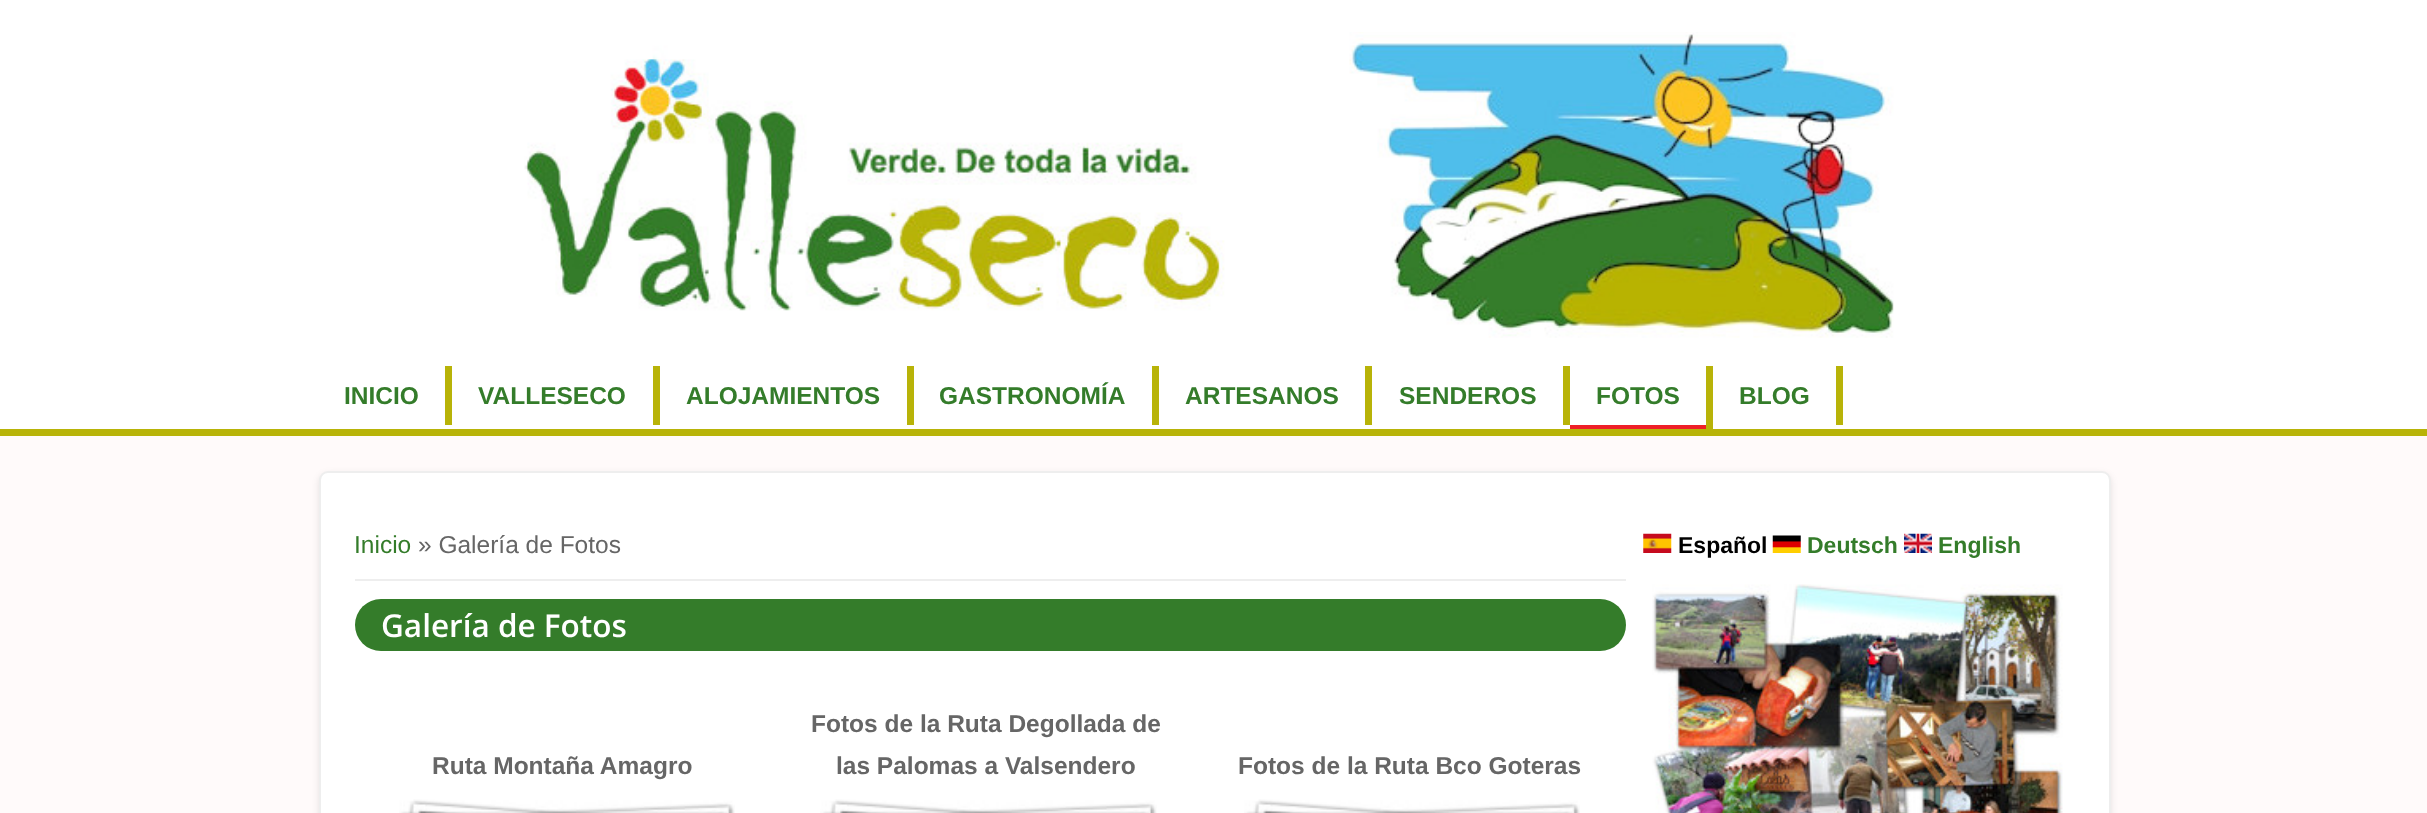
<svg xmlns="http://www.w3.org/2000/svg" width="2427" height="813">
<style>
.a{font:bold 24.5px Liberation Sans;fill:#347c2a}
.b{font:24.5px Liberation Sans;fill:#347c2a}
.c{font:24.5px Liberation Sans;fill:#666}
.d{font:600 31.5px Open Sans;fill:#fff}
.e{font:bold 24.5px Liberation Sans;fill:#666}
.f{font:bold 23px Liberation Sans;fill:#000}
.g{font:bold 23px Liberation Sans;fill:#347c2a}
</style>
<rect width="100%" height="100%" fill="#fffafa"/>
<path fill="#fff" d="M0 0h2427v429H0z"/>
<image href="1.png" x="524" y="32" width="1370" height="306"/>
<path fill="#b8b308" d="M0 429h2427v7H0z"/>
<path fill="#b8b308" d="M445 366h7v59H445z"/>
<path fill="#b8b308" d="M653 366h7v59H653z"/>
<path fill="#b8b308" d="M907 366h7v59H907z"/>
<path fill="#b8b308" d="M1152 366h7v59H1152z"/>
<path fill="#b8b308" d="M1365 366h7v59H1365z"/>
<path fill="#b8b308" d="M1563 366h7v59H1563z"/>
<path fill="#b8b308" d="M1706 366h7v63H1706z"/>
<path fill="#ee1f27" d="M1570 425h136v4H1570z"/>
<path fill="#b8b308" d="M1836 366h7v59H1836z"/>
<rect fill="#0000001a" filter="blur(3.5px)" x="319" y="474" width="1792" height="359" rx="9"/>
<rect fill="#fff" stroke="#eee" stroke-width="2" x="320" y="472" width="1790" height="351" rx="8"/>
<path fill="#eee" d="M355 579h1271v2H355z"/>
<rect fill="#347c2a" x="355" y="599" width="1271" height="52" rx="26"/>
<image href="2.png" x="399" y="799" width="336" height="14"/>
<image href="3.png" x="820" y="799" width="337" height="14"/>
<image href="4.png" x="1244" y="799" width="336" height="14"/>
<image href="5.png" x="1643" y="533" width="29" height="20"/>
<image href="6.png" x="1772" y="535" width="29" height="18"/>
<image href="7.png" x="1904" y="533" width="28" height="20"/>
<image href="8.png" x="1652" y="584" width="411" height="229"/>
<text class="a" x="344" y="404">INICIO</text>
<text class="a" x="478" y="404">VALLESECO</text>
<text class="a" x="686" y="404">ALOJAMIENTOS</text>
<text class="a" x="939" y="404">GASTRONOMÍA</text>
<text class="a" x="1185" y="404">ARTESANOS</text>
<text class="a" x="1399" y="404">SENDEROS</text>
<text class="a" x="1596" y="404">FOTOS</text>
<text class="a" x="1739" y="404">BLOG</text>
<text class="b" x="354" y="553">Inicio</text>
<text class="c" x="418" y="553">» Galería de Fotos</text>
<text class="d" x="381" y="637">Galería de Fotos</text>
<text class="e" x="432" y="774">Ruta Montaña Amagro</text>
<text class="e" x="811" y="732">Fotos de la Ruta Degollada de</text>
<text class="e" x="836" y="774">las Palomas a Valsendero</text>
<text class="e" x="1238" y="774">Fotos de la Ruta Bco Goteras</text>
<text class="f" x="1678" y="553">Español</text>
<text class="g" x="1807" y="553">Deutsch</text>
<text class="g" x="1938" y="553">English</text>
</svg>
